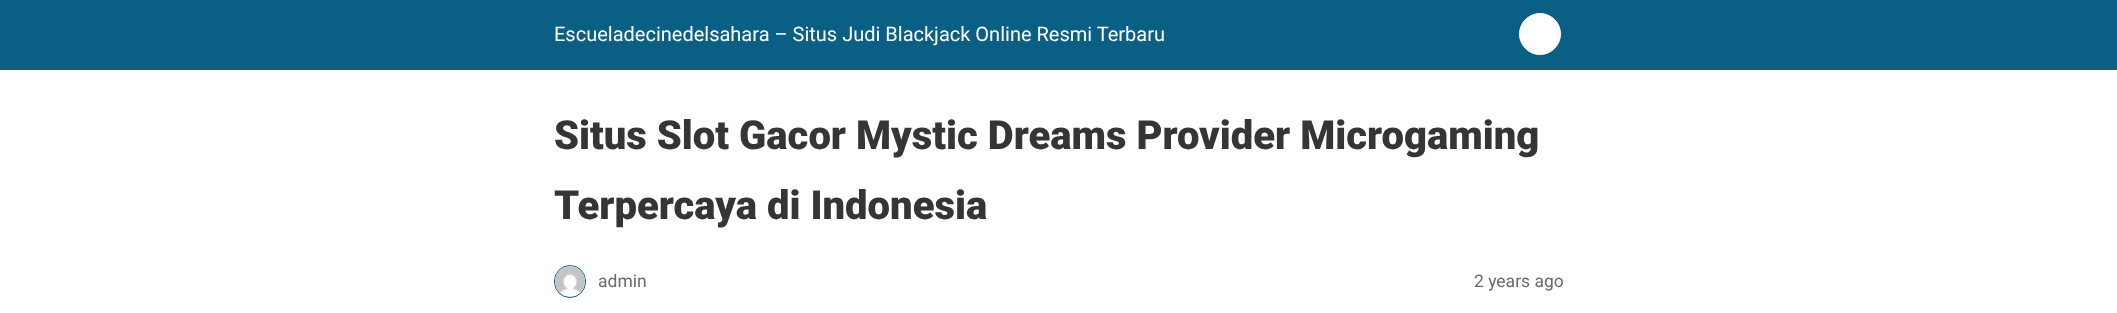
<svg xmlns="http://www.w3.org/2000/svg" width="2117" height="313">
<style>
.a{font:20px Roboto;fill:#fff}
.b{font:900 40px Roboto;fill:#353535}
.c{font:17.5px Roboto;fill:#696969}
</style>
<rect width="100%" height="100%" fill="#fff"/>
<path fill="#0a5f85" d="M0 0h2117v70H0z"/>
<circle fill="#fff" stroke="#fff" cx="1540" cy="34" r="20.5"/>
<rect fill="none" stroke="#0a5f85" x="554.5" y="265.5" width="31" height="32" rx="15.5"/>
<image href="1.png" x="555" y="266" width="30" height="29"/>
<text class="a" x="554" y="41">Escueladecinedelsahara – Situs Judi Blackjack Online Resmi Terbaru</text>
<text class="b" x="554" y="149">Situs Slot Gacor Mystic Dreams Provider Microgaming</text>
<text class="b" x="554" y="219">Terpercaya di Indonesia</text>
<text class="c" x="598" y="287">admin</text>
<text class="c" x="1474" y="287">2 years ago</text>
</svg>
